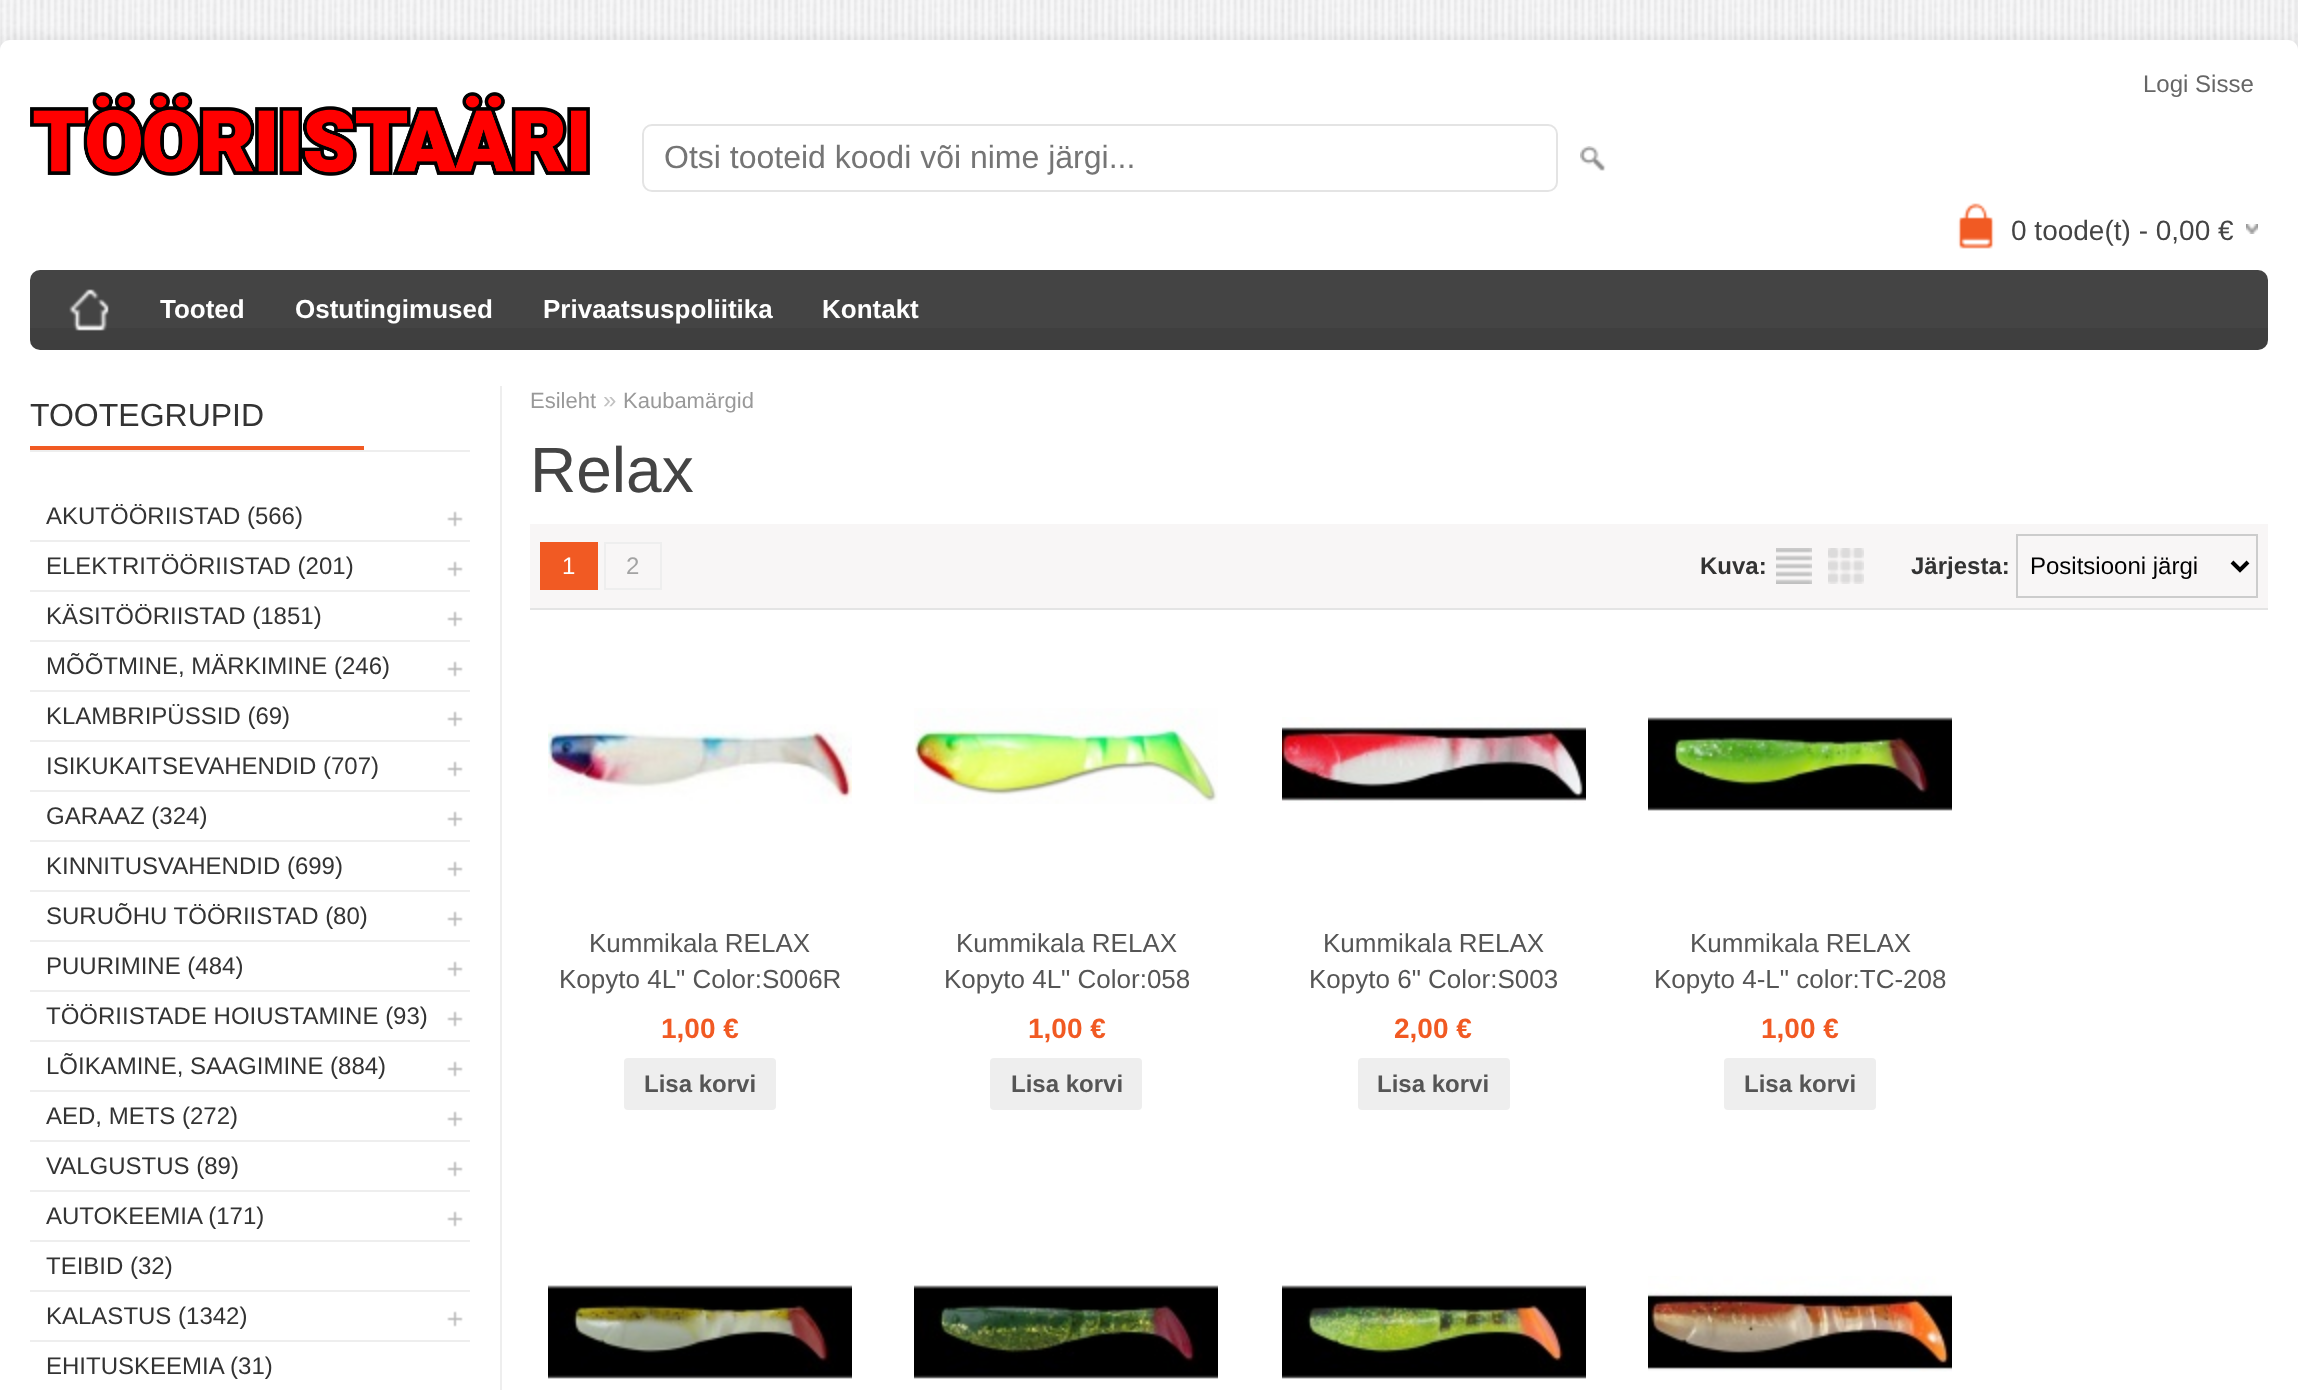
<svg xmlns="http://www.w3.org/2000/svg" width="2298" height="1390">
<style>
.a{font:24px Liberation Sans;fill:#666}
.b{font:32px Liberation Sans;fill:#757575}
.c{font:28px Liberation Sans;fill:#444}
.d{font:bold 26px Liberation Sans;fill:#fff}
.e{font:32px Liberation Sans;fill:#333}
.f{font:24px Liberation Sans;fill:#333}
.g{font:22px Liberation Sans;fill:#999}
.h{font:24px Liberation Sans;fill:#c2c2c2}
.i{font:64px Liberation Sans;fill:#444}
.j{font:24px Liberation Sans;fill:#fff}
.k{font:24px Liberation Sans;fill:#a3a3a3}
.l{font:bold 24px Liberation Sans;fill:#333}
.m{font:24px Liberation Sans;fill:#000}
.n{font:26px Liberation Sans;fill:#555}
.o{font:bold 28px Liberation Sans;fill:#f15a23}
.p{font:bold 24px Liberation Sans;fill:#555}
</style>
<rect width="100%" height="100%" fill="#f8f8fa"/>
<image href="1.png" x="0" y="0" width="2298" height="50"/>
<rect fill="#00000014" filter="blur(8px)" y="40" width="2298" height="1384" rx="10"/>
<path fill="#fff" d="M10 40h2278c5.5 0 10 4.5 10 10v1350h-2298v-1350c0-5.5 4.5-10 10-10z"/>
<image href="2.png" x="30" y="92" width="560" height="84"/>
<rect fill="none" stroke="#e4e4e4" stroke-width="2" x="643" y="125" width="914" height="66" rx="9"/>
<image href="3.png" x="1580" y="146" width="26" height="25"/>
<path fill="#f15a23" d="M1957 203h38v46H1957z"/>
<image href="4.png" x="1944" y="196" width="64" height="64"/>
<image href="5.png" x="2246" y="224" width="12" height="10"/>
<rect fill="#444" x="30" y="270" width="2238" height="80" rx="10"/>
<image href="6.png" x="30" y="328" width="2238" height="22"/>
<image href="7.png" x="69" y="289" width="40" height="42"/>
<path fill="#eee" d="M500 386h2v1004H500z"/>
<path fill="#eee" d="M30 450h440v2H30z"/>
<path fill="#f15a23" d="M30 446h334v4H30z"/>
<image href="8.png" x="447" y="511" width="16" height="16"/>
<path fill="#eee" d="M30 540h440v2H30z"/>
<image href="8.png" x="447" y="561" width="16" height="16"/>
<path fill="#eee" d="M30 590h440v2H30z"/>
<image href="8.png" x="447" y="611" width="16" height="16"/>
<path fill="#eee" d="M30 640h440v2H30z"/>
<image href="8.png" x="447" y="661" width="16" height="16"/>
<path fill="#eee" d="M30 690h440v2H30z"/>
<image href="8.png" x="447" y="711" width="16" height="16"/>
<path fill="#eee" d="M30 740h440v2H30z"/>
<image href="8.png" x="447" y="761" width="16" height="16"/>
<path fill="#eee" d="M30 790h440v2H30z"/>
<image href="8.png" x="447" y="811" width="16" height="16"/>
<path fill="#eee" d="M30 840h440v2H30z"/>
<image href="8.png" x="447" y="861" width="16" height="16"/>
<path fill="#eee" d="M30 890h440v2H30z"/>
<image href="8.png" x="447" y="911" width="16" height="16"/>
<path fill="#eee" d="M30 940h440v2H30z"/>
<image href="8.png" x="447" y="961" width="16" height="16"/>
<path fill="#eee" d="M30 990h440v2H30z"/>
<image href="8.png" x="447" y="1011" width="16" height="16"/>
<path fill="#eee" d="M30 1040h440v2H30z"/>
<image href="8.png" x="447" y="1061" width="16" height="16"/>
<path fill="#eee" d="M30 1090h440v2H30z"/>
<image href="8.png" x="447" y="1111" width="16" height="16"/>
<path fill="#eee" d="M30 1140h440v2H30z"/>
<image href="8.png" x="447" y="1161" width="16" height="16"/>
<path fill="#eee" d="M30 1190h440v2H30z"/>
<image href="8.png" x="447" y="1211" width="16" height="16"/>
<path fill="#eee" d="M30 1240h440v2H30z"/>
<path fill="#eee" d="M30 1290h440v2H30z"/>
<image href="8.png" x="447" y="1311" width="16" height="16"/>
<path fill="#eee" d="M30 1340h440v2H30z"/>
<path fill="#f8f6f6" d="M530 524h1738v84H530z"/>
<path fill="#e4e4e4" d="M530 608h1738v2H530z"/>
<path fill="#f15a23" d="M540 542h58v48H540z"/>
<path fill="none" stroke="#eee" stroke-width="2" d="M605 543h56v46H605z"/>
<image href="9.png" x="1776" y="548" width="36" height="36"/>
<image href="10.png" x="1828" y="548" width="36" height="36"/>
<path fill="none" stroke="#ccc" stroke-width="2" d="M2017 535h240v62H2017z"/>
<path fill="none" stroke="#000" stroke-width="4" d="M2232 562l8 8l8-8"/>
<image href="11.png" x="548" y="724" width="304" height="80"/>
<rect fill="#eee" x="624" y="1058" width="152" height="52" rx="4"/>
<image href="12.png" x="914" y="708" width="304" height="96"/>
<rect fill="#eee" x="990" y="1058" width="152" height="52" rx="4"/>
<image href="13.png" x="1282" y="717" width="304" height="86"/>
<rect fill="#eee" x="1358" y="1058" width="152" height="52" rx="4"/>
<image href="14.png" x="1648" y="717" width="304" height="94"/>
<rect fill="#eee" x="1724" y="1058" width="152" height="52" rx="4"/>
<image href="15.png" x="548" y="1285" width="304" height="94"/>
<image href="16.png" x="914" y="1285" width="304" height="94"/>
<image href="17.png" x="1282" y="1285" width="304" height="94"/>
<image href="18.png" x="1648" y="1276" width="304" height="96"/>
<text class="a" x="2143" y="92">Logi Sisse</text>
<text class="b" x="664" y="168">Otsi tooteid koodi või nime järgi...</text>
<text class="c" x="2011" y="240">0 toode(t) - 0,00 €</text>
<text class="d" x="160" y="318">Tooted</text>
<text class="d" x="295" y="318">Ostutingimused</text>
<text class="d" x="543" y="318">Privaatsuspoliitika</text>
<text class="d" x="822" y="318">Kontakt</text>
<text class="e" x="30" y="426">TOOTEGRUPID</text>
<text class="f" x="46" y="524">AKUTÖÖRIISTAD (566)</text>
<text class="f" x="46" y="574">ELEKTRITÖÖRIISTAD (201)</text>
<text class="f" x="46" y="624">KÄSITÖÖRIISTAD (1851)</text>
<text class="f" x="46" y="674">MÕÕTMINE, MÄRKIMINE (246)</text>
<text class="f" x="46" y="724">KLAMBRIPÜSSID (69)</text>
<text class="f" x="46" y="774">ISIKUKAITSEVAHENDID (707)</text>
<text class="f" x="46" y="824">GARAAZ (324)</text>
<text class="f" x="46" y="874">KINNITUSVAHENDID (699)</text>
<text class="f" x="46" y="924">SURUÕHU TÖÖRIISTAD (80)</text>
<text class="f" x="46" y="974">PUURIMINE (484)</text>
<text class="f" x="46" y="1024">TÖÖRIISTADE HOIUSTAMINE (93)</text>
<text class="f" x="46" y="1074">LÕIKAMINE, SAAGIMINE (884)</text>
<text class="f" x="46" y="1124">AED, METS (272)</text>
<text class="f" x="46" y="1174">VALGUSTUS (89)</text>
<text class="f" x="46" y="1224">AUTOKEEMIA (171)</text>
<text class="f" x="46" y="1274">TEIBID (32)</text>
<text class="f" x="46" y="1324">KALASTUS (1342)</text>
<text class="f" x="46" y="1374">EHITUSKEEMIA (31)</text>
<text class="g" x="530" y="408">Esileht</text>
<text class="h" x="603" y="408">»</text>
<text class="g" x="623" y="408">Kaubamärgid</text>
<text class="i" x="530" y="492">Relax</text>
<text class="j" x="562" y="574">1</text>
<text class="k" x="626" y="574">2</text>
<text class="l" x="1700" y="574">Kuva:</text>
<text class="l" x="1911" y="574">Järjesta:</text>
<text class="m" x="2030" y="574">Positsiooni järgi</text>
<text class="n" x="589" y="952">Kummikala RELAX</text>
<text class="n" x="559" y="988">Kopyto 4L" Color:S006R</text>
<text class="o" x="661" y="1038">1,00 €</text>
<text class="p" x="644" y="1092">Lisa korvi</text>
<text class="n" x="956" y="952">Kummikala RELAX</text>
<text class="n" x="944" y="988">Kopyto 4L" Color:058</text>
<text class="o" x="1028" y="1038">1,00 €</text>
<text class="p" x="1011" y="1092">Lisa korvi</text>
<text class="n" x="1323" y="952">Kummikala RELAX</text>
<text class="n" x="1309" y="988">Kopyto 6" Color:S003</text>
<text class="o" x="1394" y="1038">2,00 €</text>
<text class="p" x="1377" y="1092">Lisa korvi</text>
<text class="n" x="1690" y="952">Kummikala RELAX</text>
<text class="n" x="1654" y="988">Kopyto 4-L" color:TC-208</text>
<text class="o" x="1761" y="1038">1,00 €</text>
<text class="p" x="1744" y="1092">Lisa korvi</text>
</svg>
